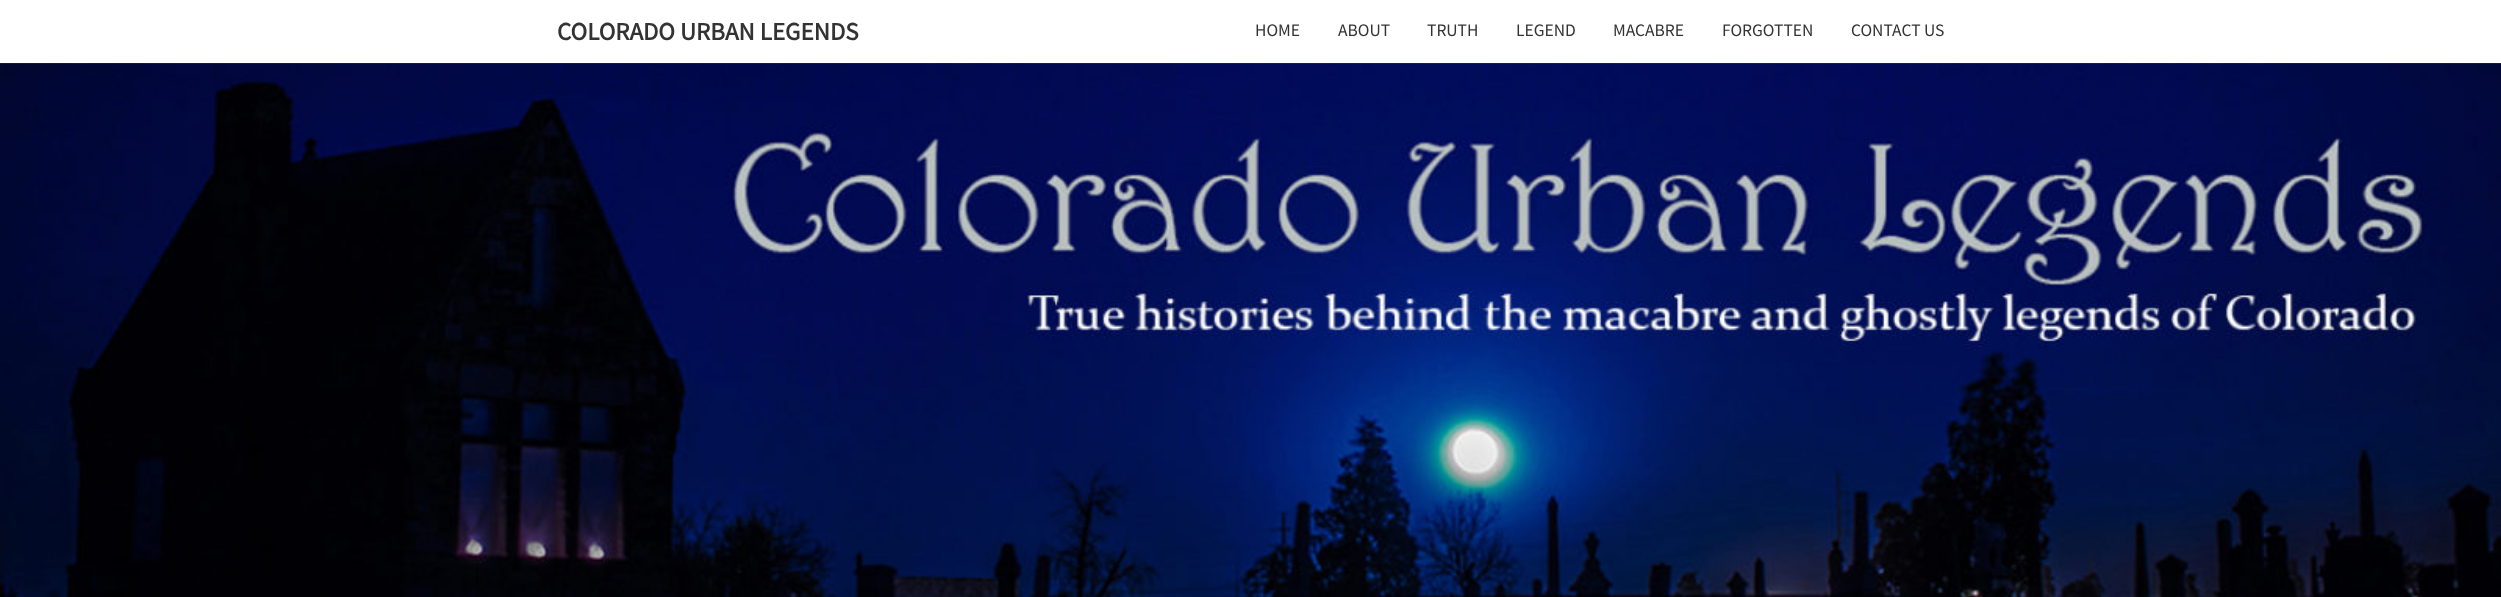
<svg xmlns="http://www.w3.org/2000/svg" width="2501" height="597">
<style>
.a{font:bold 25px Source Sans Pro;fill:#333}
.b{font:17.5px Source Sans Pro;fill:#333}
</style>
<rect width="100%" height="100%" fill="#fff"/>
<image href="1.png" x="0" y="63" width="2501" height="534"/>
<path fill="#64646433" filter="blur(0.5px)" d="M0 1h2501v63H0z"/>
<path fill="#fff" d="M0 0h2501v63H0z"/>
<text class="a" x="557" y="40">COLORADO URBAN LEGENDS</text>
<text class="b" x="1255" y="36">HOME</text>
<text class="b" x="1338" y="36">ABOUT</text>
<text class="b" x="1427" y="36">TRUTH</text>
<text class="b" x="1516" y="36">LEGEND</text>
<text class="b" x="1613" y="36">MACABRE</text>
<text class="b" x="1722" y="36">FORGOTTEN</text>
<text class="b" x="1851" y="36">CONTACT US</text>
</svg>
